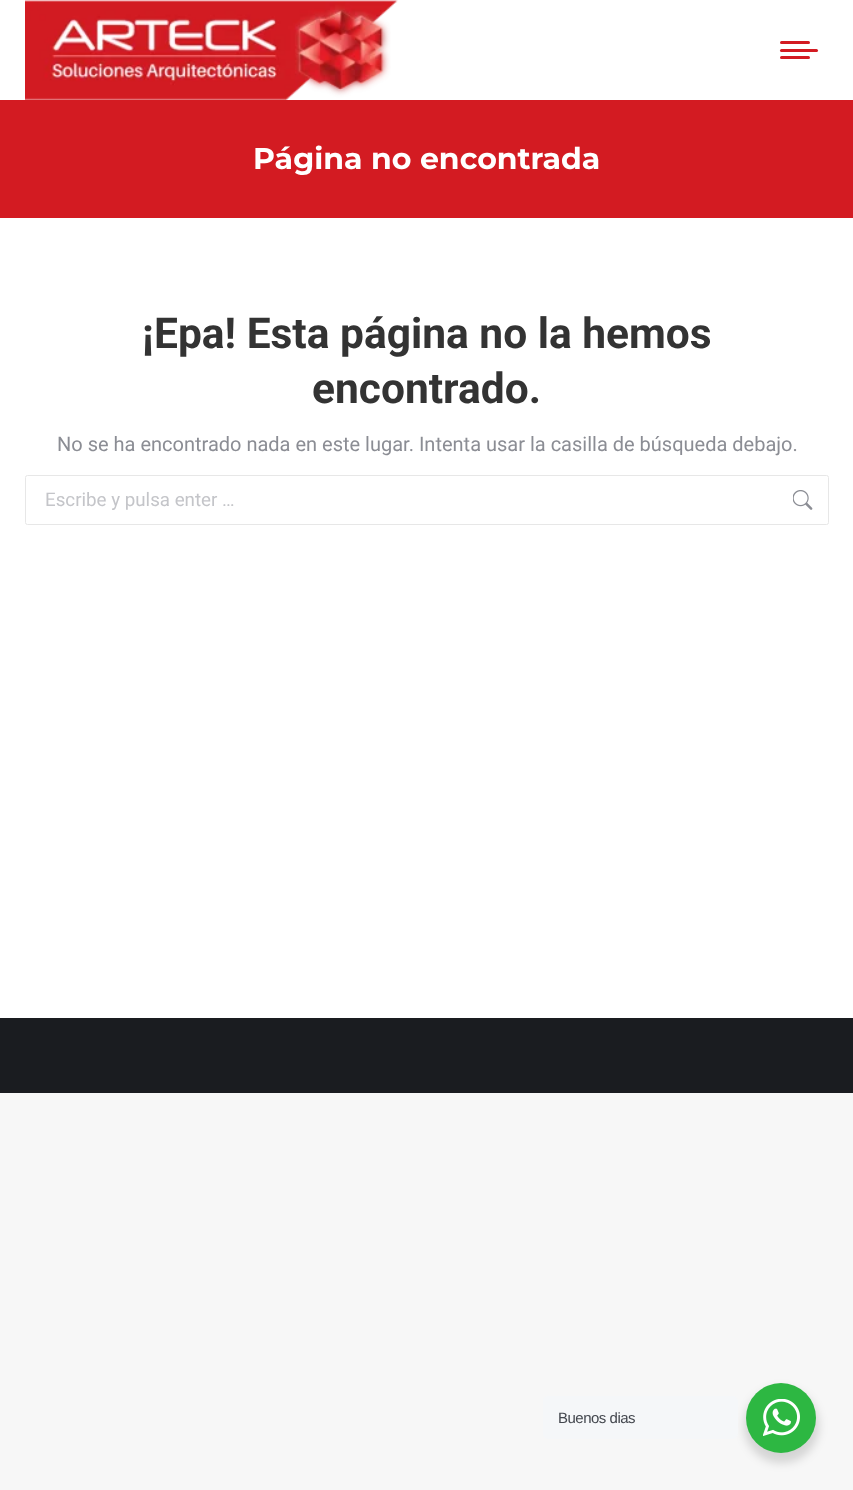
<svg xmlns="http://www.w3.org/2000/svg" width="853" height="1490">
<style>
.a{font:bold 30px Montserrat;fill:#fff}
.b{font:bold 42.5px Roboto;fill:#333}
.c{font:20px Roboto;fill:#8b8d94}
.d{font:18.75px Roboto;fill:#c4c5c9}
.e{font:15px Liberation Sans;letter-spacing:-0.5px;fill:#43474e}
</style>
<rect width="100%" height="100%" fill="#f7f7f7"/>
<path fill="#fff" d="M0 0h853v1018H0z"/>
<image href="1.png" x="25" y="0" width="373" height="100"/>
<rect fill="#d31b22" x="780" y="41" width="30" height="3" rx="1.5"/>
<rect fill="#d31b22" x="780" y="49" width="38" height="3" rx="1.5"/>
<rect fill="#d31b22" x="780" y="56" width="30" height="3" rx="1.5"/>
<path fill="#d31b22" d="M0 100h853v118H0z"/>
<rect fill="none" stroke="#e7e7e7" x="25.5" y="475.5" width="803" height="49" rx="2"/>
<image href="2.png" x="793" y="490" width="20" height="20"/>
<path fill="#1a1c20" d="M0 1018h853v75H0z"/>
<rect fill="#00000024" filter="blur(5px)" x="744" y="1388" width="75" height="75" rx="37.5"/>
<rect fill="#f5f7f9" x="543" y="1396" width="195" height="43" rx="5"/>
<circle fill="#2db742" cx="781" cy="1418" r="35"/>
<image href="3.png" x="763" y="1399" width="37" height="37"/>
<text class="a" x="253" y="169">Página no encontrada</text>
<text class="b" x="142" y="348">¡Epa! Esta página no la hemos</text>
<text class="b" x="312" y="403">encontrado.</text>
<text class="c" x="57" y="451">No se ha encontrado nada en este lugar. Intenta usar la casilla de búsqueda debajo.</text>
<text class="d" x="45" y="506">Escribe y pulsa enter …</text>
<text class="e" x="558" y="1423">Buenos dias</text>
</svg>
